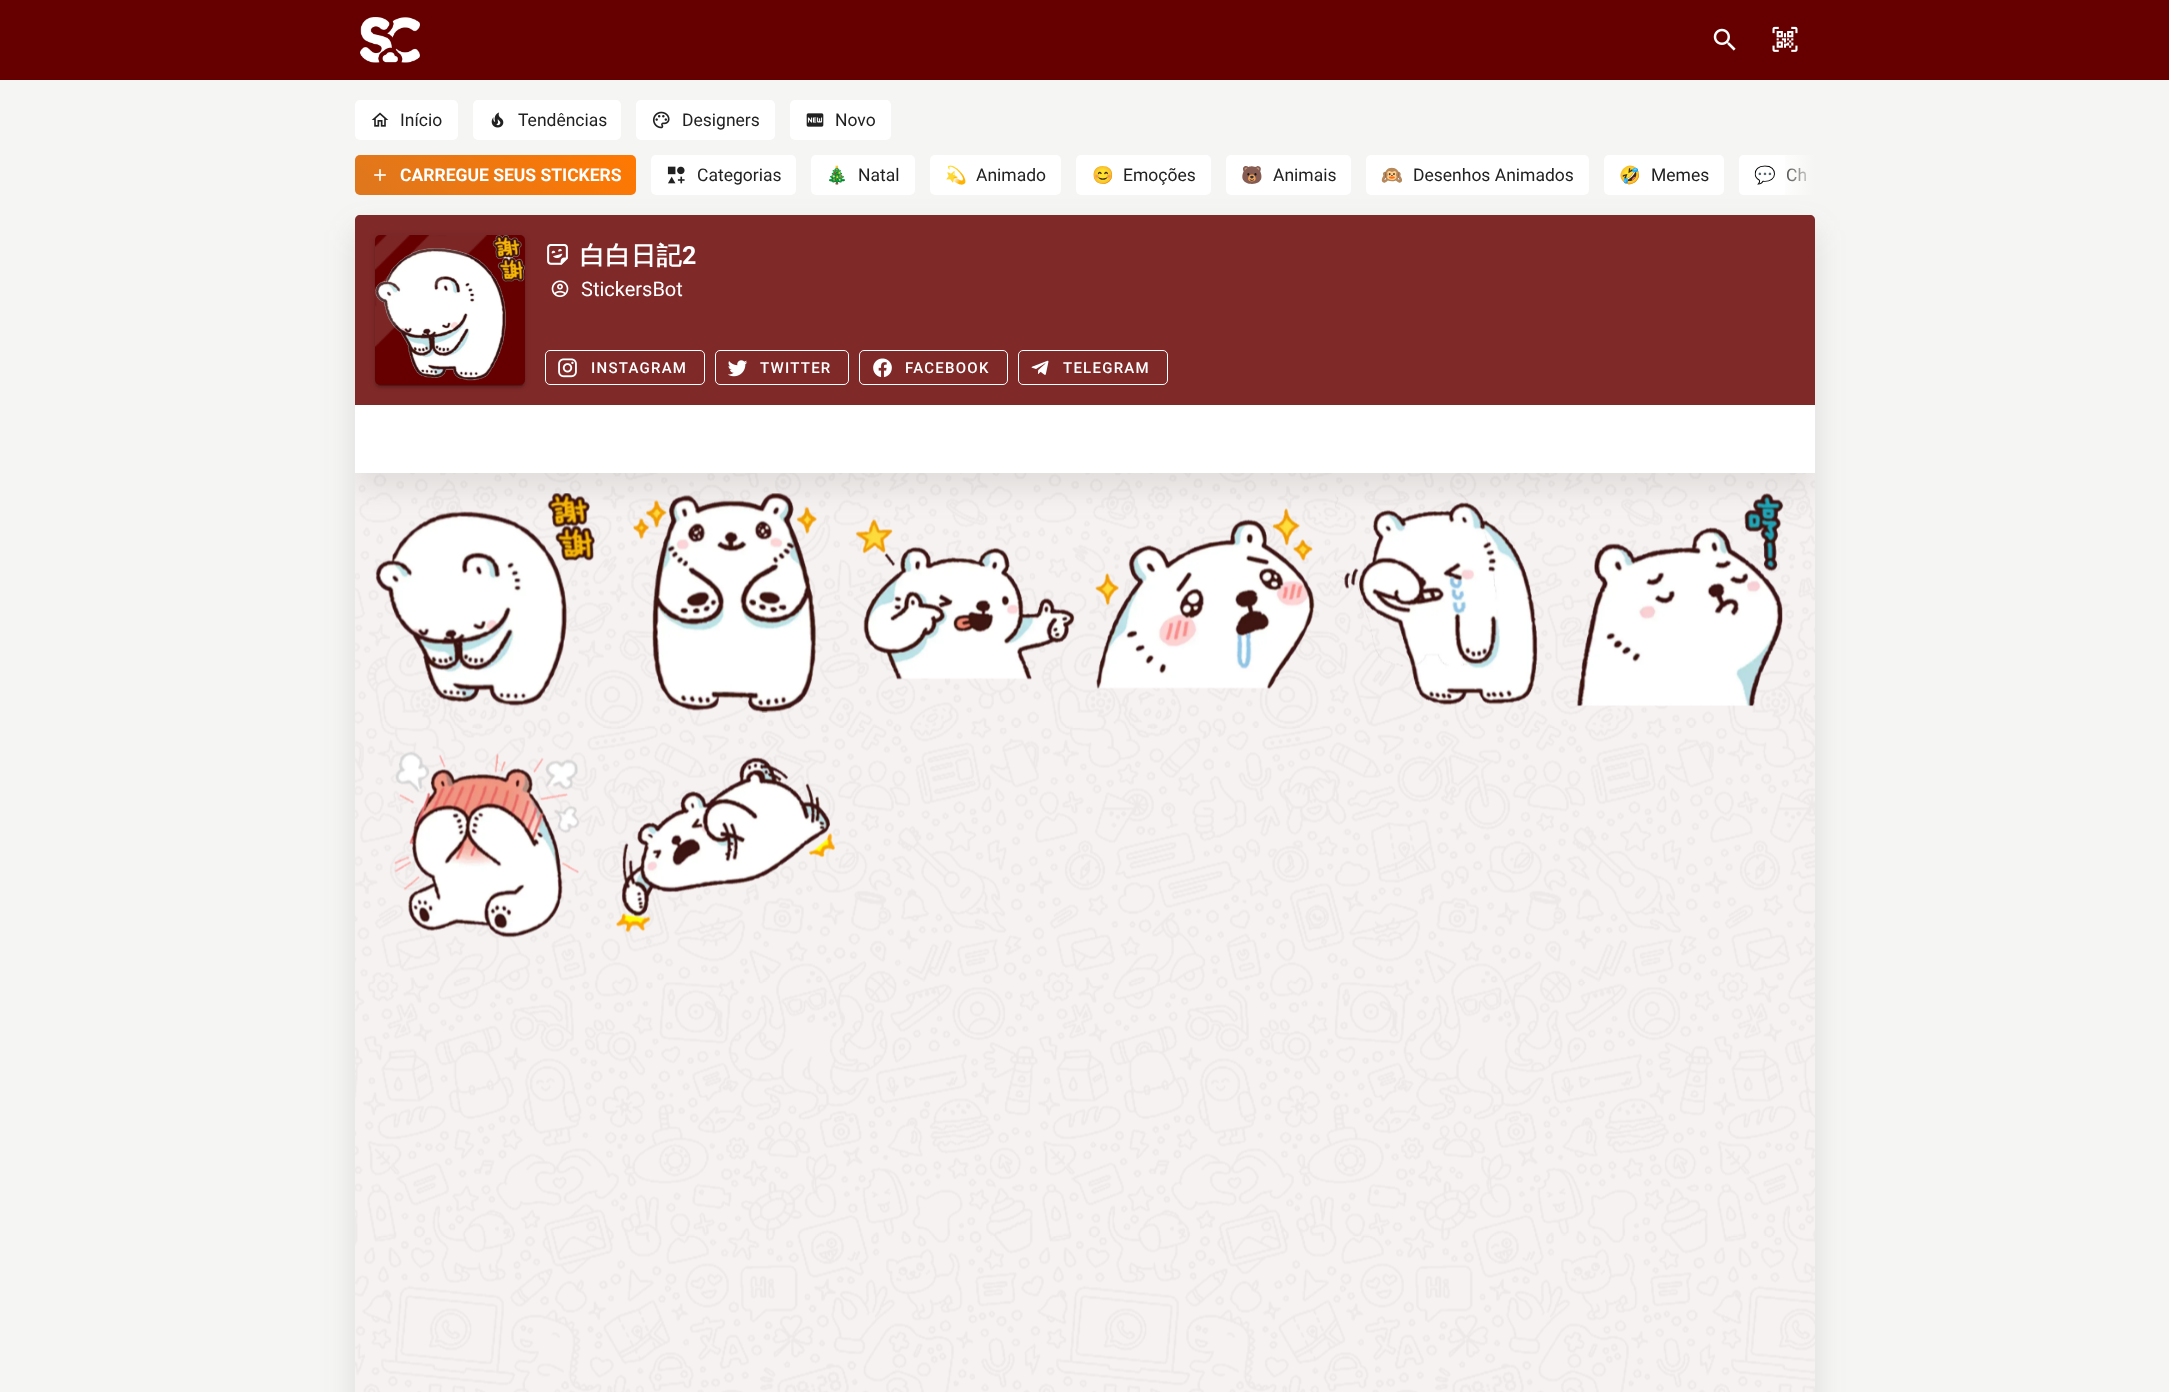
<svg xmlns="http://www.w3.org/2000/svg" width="2169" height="1392">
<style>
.a{font:17.5px Roboto;fill:#212121}
.b{font:bold 17.5px Roboto;fill:#fff}
.c{font:17.5px Noto Color Emoji;fill:#212121}
.d{font:bold 25px WenQuanYi Zen Hei;letter-spacing:0.5px;fill:#fff}
.e{font:bold 25px Roboto;letter-spacing:0.5px;fill:#fff}
.f{font:20px Roboto;fill:#fff}
.g{font:500 15px Roboto;letter-spacing:1.25px;fill:#fff}
</style>
<defs>
<linearGradient id="g1" gradientUnits="userSpaceOnUse" x1="415" y1="255" x2="576" y2="95"><stop offset="0" stop-color="#de771e"/><stop offset="1" stop-color="#ff7802"/></linearGradient>
<clipPath id="clip1"><rect x="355" y="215" width="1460" height="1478" rx="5"/></clipPath>
<clipPath id="clip2"><path d="M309 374h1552v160h-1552zm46 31h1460v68h-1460z" clip-rule="evenodd"/></clipPath>
<linearGradient id="g2" gradientUnits="userSpaceOnUse" x1="1778" y1="175" x2="1815" y2="175"><stop offset="0" stop-color="#f5f5f3" stop-opacity="0"/><stop offset="1" stop-color="#f5f5f3"/></linearGradient>
</defs>
<rect width="100%" height="100%" fill="#f5f5f3"/>
<path fill="#600" d="M0 0h2169v80H0z"/>
<image href="1.png" x="360" y="17" width="60" height="46"/>
<image href="2.png" x="1713" y="28" width="23" height="23"/>
<image href="3.png" x="1772" y="26" width="26" height="26"/>
<rect fill="#fff" x="355" y="100" width="103" height="40" rx="5"/>
<image href="4.png" x="371" y="112" width="18" height="15"/>
<rect fill="#fff" x="473" y="100" width="148" height="40" rx="5"/>
<image href="5.png" x="491" y="112" width="13" height="16"/>
<rect fill="#fff" x="636" y="100" width="139" height="40" rx="5"/>
<image href="6.png" x="652" y="111" width="18" height="18"/>
<rect fill="#fff" x="790" y="100" width="101" height="40" rx="5"/>
<image href="7.png" x="806" y="113" width="18" height="14"/>
<rect fill="#666e6229" filter="blur(15px)" x="355" y="230" width="1460" height="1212" rx="5"/>
<rect fill="url(#g1)" x="355" y="155" width="281" height="40" rx="5"/>
<image href="8.png" x="374" y="169" width="12" height="12"/>
<rect fill="#fff" x="651" y="155" width="145" height="40" rx="5"/>
<image href="9.png" x="667" y="166" width="18" height="18"/>
<rect fill="#fff" x="811" y="155" width="104" height="40" rx="5"/>
<rect fill="#fff" x="930" y="155" width="131" height="40" rx="5"/>
<rect fill="#fff" x="1076" y="155" width="135" height="40" rx="5"/>
<rect fill="#fff" x="1226" y="155" width="125" height="40" rx="5"/>
<rect fill="#fff" x="1366" y="155" width="223" height="40" rx="5"/>
<rect fill="#fff" x="1604" y="155" width="120" height="40" rx="5"/>
<path fill="#fff" d="M1744 155h71v40h-71c-3 0-5-2-5-5v-30c0-3 2-5 5-5z"/>
<rect fill="#fff" x="355" y="215" width="1460" height="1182" rx="5"/>
<g clip-path="url(#clip1)">
<g clip-path="url(#clip2)">
<path fill="#666e6229" filter="blur(15px)" d="M355 420h1460v68H355z"/>
</g>
</g>
<path fill="#660000d6" d="M360 215h1450c3 0 5 2 5 5v185h-1460v-185c0-3 2-5 5-5z"/>
<rect fill="#0000001f" filter="blur(3px)" x="375" y="236" width="150" height="150" rx="5"/>
<rect fill="#00000024" filter="blur(1px)" x="375" y="238" width="150" height="150" rx="5"/>
<rect fill="#00000033" filter="blur(0.5px)" x="378" y="241" width="145" height="145" rx="2.5"/>
<rect fill="#600" x="375" y="235" width="150" height="150" rx="5"/>
<image href="10.png" x="375" y="235" width="150" height="146"/>
<image href="11.png" x="375" y="235" width="112" height="112"/>
<image href="12.png" x="547" y="244" width="21" height="21"/>
<image href="13.png" x="551" y="280" width="18" height="18"/>
<rect fill="none" stroke="#fff" x="545.5" y="350.5" width="159" height="34" rx="4.5"/>
<image href="14.png" x="558" y="358" width="19" height="20"/>
<rect fill="none" stroke="#fff" x="715.5" y="350.5" width="133" height="34" rx="4.5"/>
<image href="15.png" x="728" y="360" width="20" height="17"/>
<rect fill="none" stroke="#fff" x="859.5" y="350.5" width="148" height="34" rx="4.5"/>
<image href="16.png" x="873" y="358" width="19" height="20"/>
<rect fill="none" stroke="#fff" x="1018.5" y="350.5" width="149" height="34" rx="4.5"/>
<image href="17.png" x="1031" y="360" width="18" height="15"/>
<path fill="#6600000d" d="M355 473h1460v919H355z"/>
<image href="18.png" x="355" y="473" width="1460" height="919"/>
<image href="19.png" x="375" y="493" width="220" height="214"/>
<image href="20.png" x="633" y="493" width="184" height="220"/>
<image href="21.png" x="855" y="519" width="220" height="161"/>
<image href="22.png" x="1095" y="508" width="220" height="181"/>
<image href="23.png" x="1335" y="493" width="203" height="213"/>
<image href="24.png" x="1576" y="493" width="208" height="214"/>
<image href="25.png" x="394" y="751" width="186" height="187"/>
<image href="26.png" x="616" y="757" width="219" height="176"/>
<text class="a" x="400" y="126">Início</text>
<text class="a" x="518" y="126">Tendências</text>
<text class="a" x="682" y="126">Designers</text>
<text class="a" x="835" y="126">Novo</text>
<text class="b" x="400" y="181">CARREGUE SEUS STICKERS</text>
<text class="a" x="697" y="181">Categorias</text>
<text class="c" x="826" y="181">🎄</text>
<text class="a" x="858" y="181">Natal</text>
<text class="c" x="945" y="181">💫</text>
<text class="a" x="976" y="181">Animado</text>
<text class="c" x="1092" y="181">😊</text>
<text class="a" x="1123" y="181">Emoções</text>
<text class="c" x="1241" y="181">🐻</text>
<text class="a" x="1273" y="181">Animais</text>
<text class="c" x="1381" y="181">🙉</text>
<text class="a" x="1413" y="181">Desenhos Animados</text>
<text class="c" x="1619" y="181">🤣</text>
<text class="a" x="1651" y="181">Memes</text>
<text class="c" x="1754" y="181">💬</text>
<text class="a" x="1786" y="181">Ch</text>
<path fill="url(#g2)" d="M1785 155h30v40H1785z"/>
<text class="d" x="580" y="264">白白日記</text>
<text class="e" x="682" y="264">2</text>
<text class="f" x="581" y="296">StickersBot</text>
<text class="g" x="591" y="373">INSTAGRAM</text>
<text class="g" x="760" y="373">TWITTER</text>
<text class="g" x="905" y="373">FACEBOOK</text>
<text class="g" x="1063" y="373">TELEGRAM</text>
</svg>
